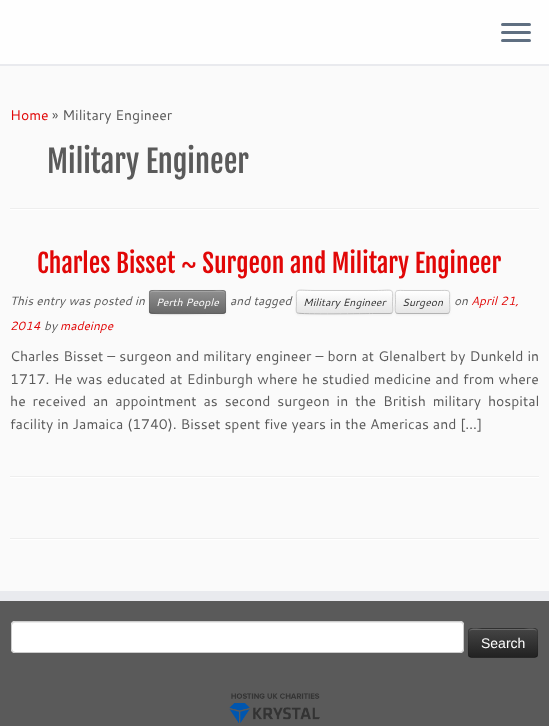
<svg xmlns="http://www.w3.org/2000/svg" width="549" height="726">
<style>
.a{font:14px Cantarell;fill:#e10707}
.b{font:14px Cantarell;fill:#5a5a5a}
.c{font:30.5px Fjalla One;fill:#5a5a5a}
.d{font:25.6px Fjalla One;fill:#e10707}
.e{font:italic 12px Cantarell;fill:#5a5a5a}
.f{font:italic 10.5px Cantarell;fill:#fff}
.g{font:italic 10.5px Cantarell;fill:#333}
.h{font:italic 12px Cantarell;fill:#e10707}
.i{font:14px Liberation Sans;fill:#fff}
</style>
<defs>
<clipPath id="clip1"><rect x="149" y="290" width="77" height="24" rx="3"/></clipPath>
<linearGradient id="g1" gradientUnits="userSpaceOnUse" x1="188" y1="291" x2="188" y2="313"><stop offset="0" stop-color="#8f8f8f"/><stop offset="1" stop-color="#696969"/></linearGradient>
<clipPath id="clip2"><rect x="296" y="290" width="97" height="24" rx="3"/></clipPath>
<linearGradient id="g2" gradientUnits="userSpaceOnUse" x1="345" y1="291" x2="345" y2="313"><stop offset="0" stop-color="#fff"/><stop offset="1" stop-color="#e6e6e6"/></linearGradient>
<clipPath id="clip3"><rect x="395" y="290" width="55" height="24" rx="3"/></clipPath>
<linearGradient id="g3" gradientUnits="userSpaceOnUse" x1="423" y1="291" x2="423" y2="313"><stop offset="0" stop-color="#fff"/><stop offset="1" stop-color="#e6e6e6"/></linearGradient>
<clipPath id="clip4"><rect x="468" y="628" width="70" height="30" rx="4"/></clipPath>
<linearGradient id="g4" gradientUnits="userSpaceOnUse" x1="503" y1="629" x2="503" y2="657"><stop offset="0" stop-color="#444"/><stop offset="1" stop-color="#222"/></linearGradient>
</defs>
<rect width="100%" height="100%" fill="#fafafa"/>
<path fill="#fefefe" d="M0 0h549v64H0z"/>
<path fill="#e9eaee" d="M0 64h549v2H0z"/>
<rect fill="#5f6f81" x="501" y="23" width="30" height="3" rx="1.5"/>
<rect fill="#5f6f81" x="501" y="31" width="30" height="3" rx="1.5"/>
<rect fill="#5f6f81" x="501" y="39" width="30" height="3" rx="1.5"/>
<path fill="#eee" d="M10 208h529v1H10z"/>
<path fill="#fff" d="M10 209h529v1H10z"/>
<rect fill="#0000000d" filter="blur(1px)" x="149" y="291" width="77" height="24" rx="3"/>
<rect fill="#808080" x="149" y="290" width="77" height="24" rx="3"/>
<g clip-path="url(#clip1)">
<path fill="url(#g1)" d="M149 291h77v22H149z"/>
</g>
<path fill="#ffffff33" d="M152 292h71c1 0 2 1 2 2c0-6-11-3-14-3h-47c-3 0-14-3-14 3c0-1 1-2 2-2z"/>
<path fill="none" stroke="#00000040" d="M225 313l-2 .5h-12c-6.5 0-58.5 1-60.5-.5h-.5"/>
<path fill="none" stroke="#0000001a" d="M150 313c-1.5-2-.5-6-.5-8c0-17-3-14.5 14.5-14.5h47c17.5 0 14.5-2.5 14.5 14.5c0 2 1 6-.5 8"/>
<rect fill="#0000000d" filter="blur(1px)" x="296" y="291" width="97" height="24" rx="3"/>
<rect fill="#f5f5f5" x="296" y="290" width="97" height="24" rx="3"/>
<g clip-path="url(#clip2)">
<path fill="url(#g2)" d="M296 291h97v22H296z"/>
</g>
<path fill="none" stroke="#b3b3b3" d="M392 313l-2 .5h-15c-8 0-75.5 1-77.5-.5h-.5"/>
<path fill="none" stroke="#ccc" d="M297 313c-1.5-2-.5-6-.5-8c0-18.5-3-14.5 17.5-14.5h61c20.5 0 17.5-4 17.5 14.5c0 2 1 6-.5 8"/>
<rect fill="#0000000d" filter="blur(1px)" x="395" y="291" width="55" height="24" rx="3"/>
<g clip-path="url(#clip3)">
<path fill="url(#g3)" d="M395 291h55v22H395z"/>
</g>
<path fill="#fefefe" d="M398 292h49c1 0 2 1 2 2c0-5-6-3-10-3h-33c-4 0-10-2-10 3c0-1 1-2 2-2z"/>
<path fill="none" stroke="#b3b3b3" d="M449 313l-2 .5h-49l-2-.5"/>
<path fill="none" stroke="#ccc" d="M396 313c-1.5-2-.5-9-.5-11c0-13-2-11.5 10.5-11.5h33c12.5 0 10.5-1.5 10.5 11.5c0 2 1 9-.5 11"/>
<path fill="#eee" d="M10 476h529v1H10z"/>
<path fill="#fff" d="M10 477h529v1H10z"/>
<path fill="#eee" d="M10 538h529v1H10z"/>
<path fill="#fff" d="M10 539h529v1H10z"/>
<path fill="#5a5a5a" d="M0 601h549v125H0z"/>
<path fill="#e9eaee" d="M0 591h549v10H0z"/>
<rect fill="#fff" x="11" y="621" width="453" height="32" rx="4"/>
<path fill="#ececec" d="M15 623h445c2 0 3 1 3 3c0-2-1-4-3-4h-446l-2 2v2c0-2 1-3 3-3z"/>
<rect fill="none" stroke="#ccc" x="11.5" y="621.5" width="452" height="31" rx="3.5"/>
<rect fill="#363636" x="468" y="628" width="70" height="30" rx="4"/>
<g clip-path="url(#clip4)">
<path fill="url(#g4)" d="M468 629h70v28H468z"/>
</g>
<path fill="#ffffff33" d="M472 630h62c2 0 3 1 3 3c0-7-9-4-13-4h-42c-4 0-13-3-13 4c0-2 1-3 3-3z"/>
<path fill="none" stroke="#00000040" d="M536.5 656.5l-2 1h-63l-2-1"/>
<path fill="none" stroke="#0000001a" d="M469.5 656.5c-2-2-1-10.5-1-13.5c0-16-2.5-14.5 14-14.5h41c16.5 0 14-1.5 14 14.5c0 3 1 11.5-1 13.5"/>
<image href="1.png" x="229" y="693" width="91" height="30"/>
<text class="a" x="10" y="120">Home</text>
<text class="b" x="52" y="120">» Military Engineer</text>
<text class="c" x="47" y="173">Military Engineer</text>
<text class="d" x="37" y="273">Charles Bisset ~ Surgeon and Military Engineer</text>
<text class="e" x="10" y="305">This entry was posted in</text>
<text class="f" x="156" y="306">Perth People</text>
<text class="e" x="230" y="305">and tagged</text>
<text class="g" x="303" y="306">Military Engineer</text>
<text class="g" x="402" y="306">Surgeon</text>
<text class="e" x="454" y="305">on</text>
<text class="h" x="471" y="305">April 21,</text>
<text class="h" x="10" y="330">2014</text>
<text class="e" x="44" y="330">by</text>
<text class="h" x="60" y="330">madeinpe</text>
<text class="b" x="10" y="361" word-spacing="0.25">Charles Bisset – surgeon and military engineer – born at Glenalbert by Dunkeld in</text>
<text class="b" x="10" y="384" word-spacing="0.5">1717. He was educated at Edinburgh where he studied medicine and from where</text>
<text class="b" x="10" y="406" word-spacing="3.1">he received an appointment as second surgeon in the British military hospital</text>
<text class="b" x="10" y="429">facility in Jamaica (1740). Bisset spent five years in the Americas and […]</text>
<text class="i" x="481" y="648">Search</text>
</svg>
